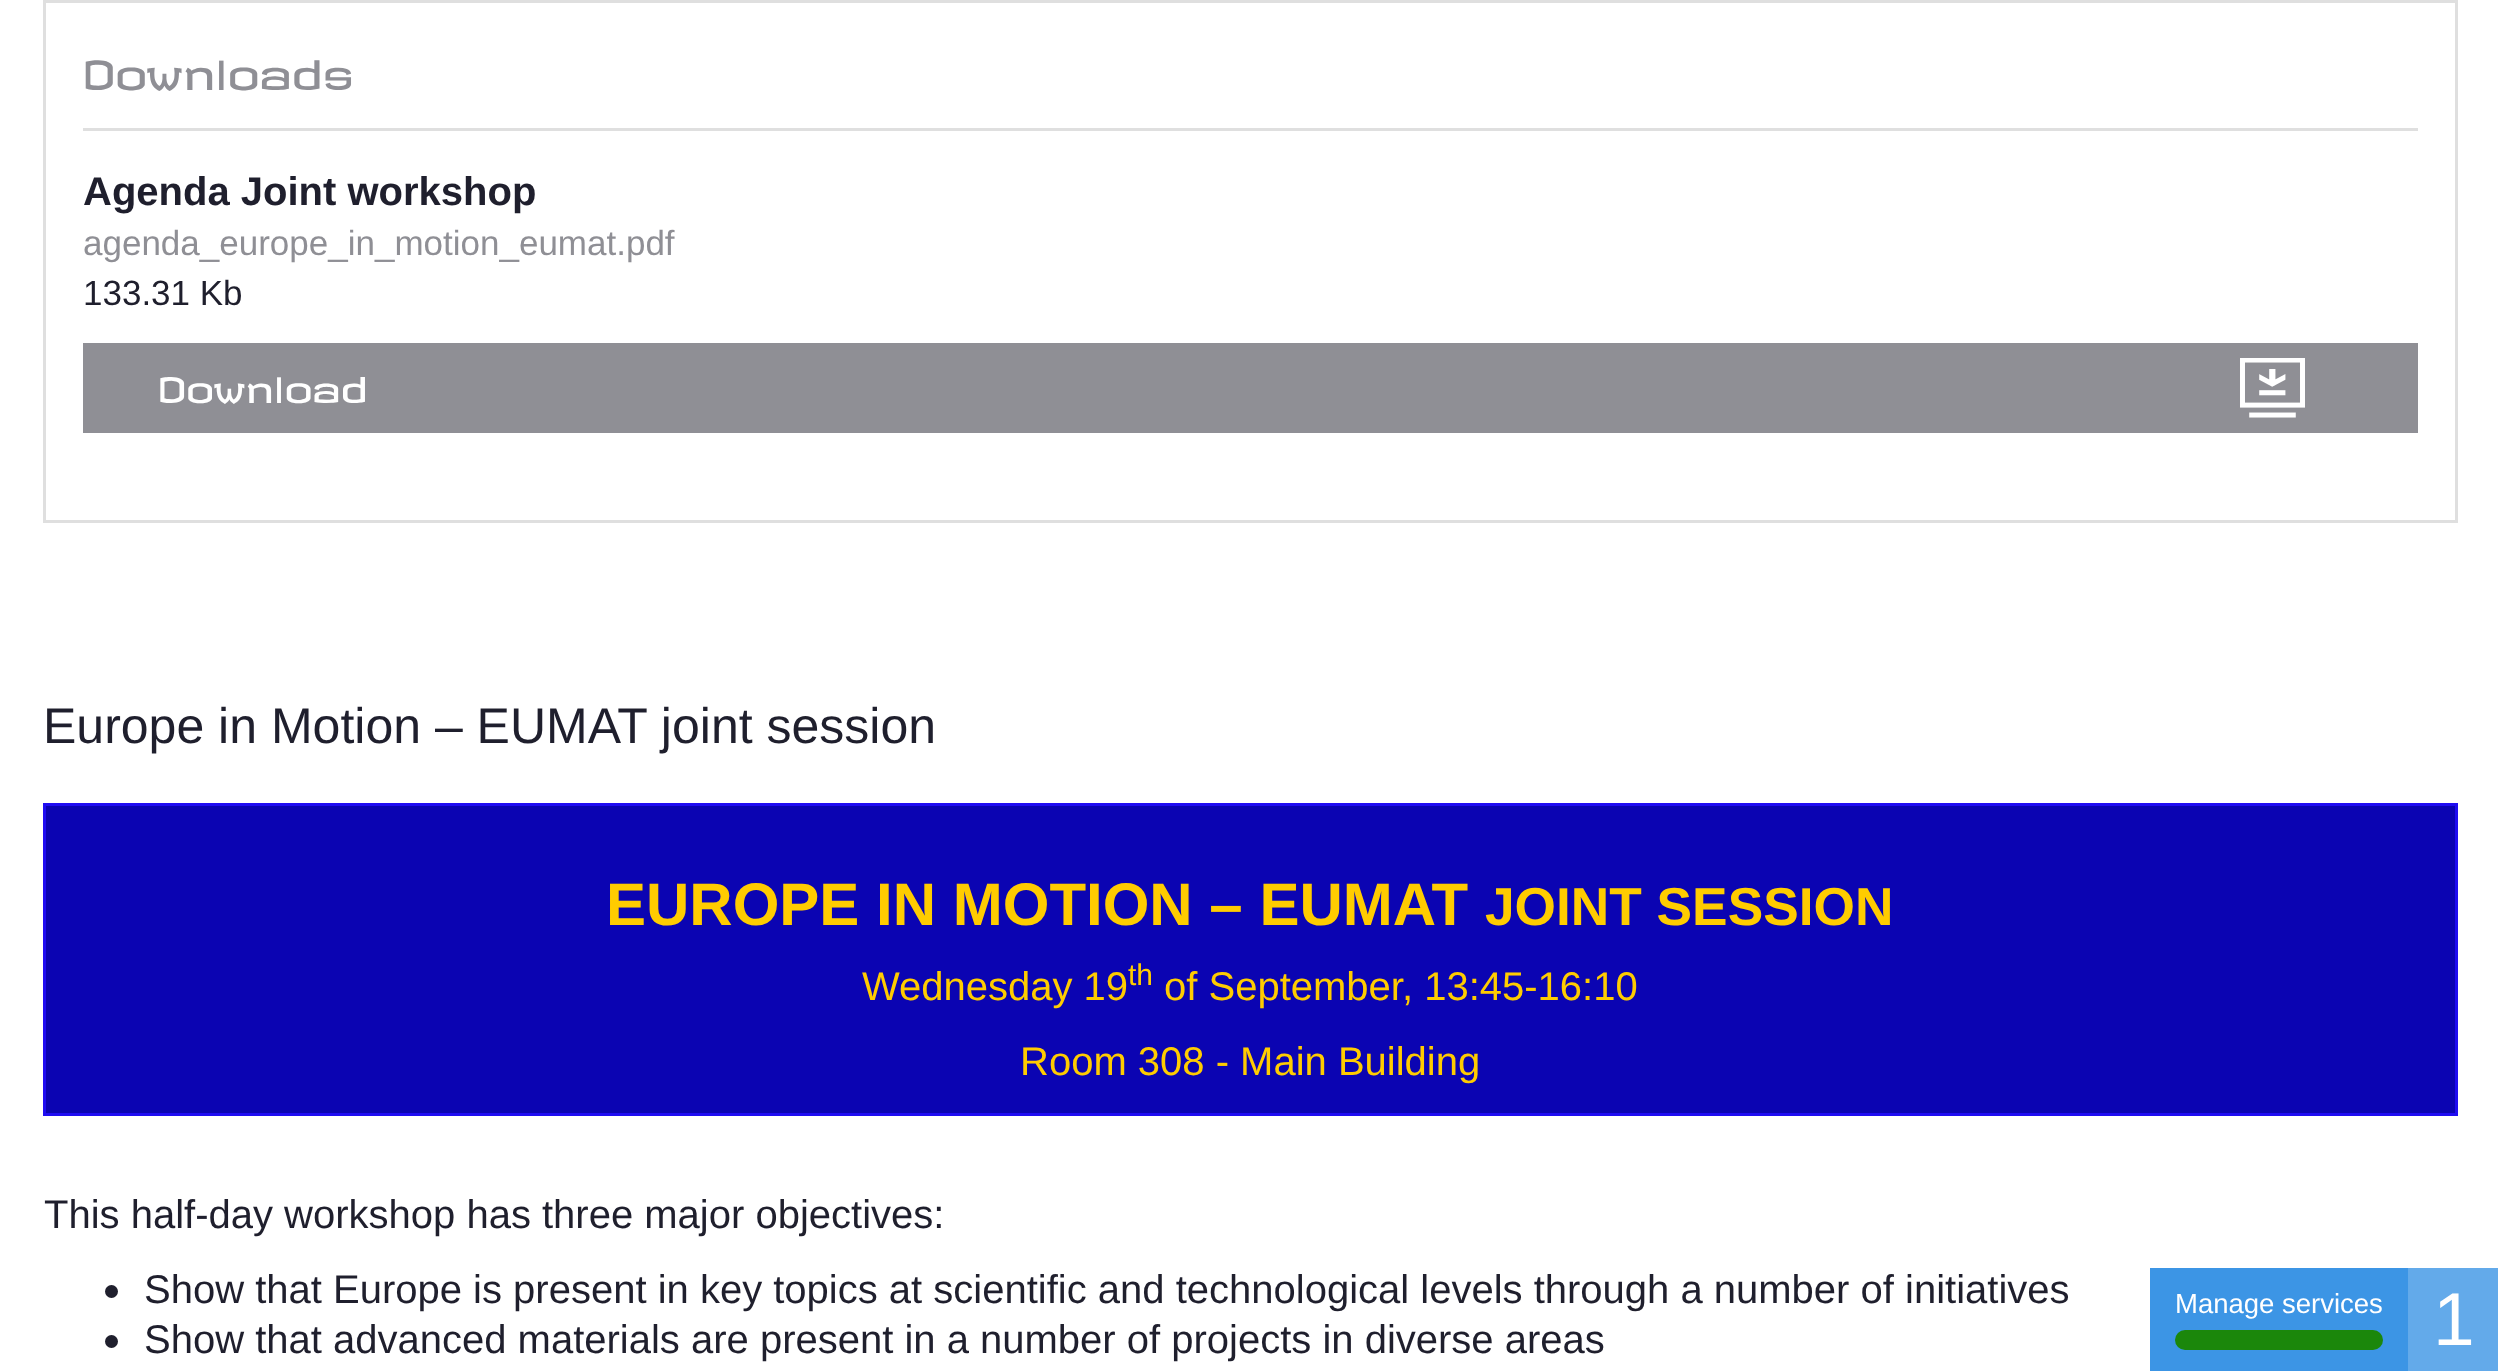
<svg xmlns="http://www.w3.org/2000/svg" width="2498" height="1371">
<style>
.a{font:40px Revalia;fill:#8f8f95}
.b{font:bold 40px Liberation Sans;fill:#1f1f2d}
.c{font:35px Liberation Sans;fill:#8f8f95}
.d{font:35px Liberation Sans;fill:#1f1f2d}
.e{font:35px Revalia;fill:#fff}
.f{font:50px Liberation Sans;fill:#1f1f2d}
.g{font:bold 60px Liberation Sans;fill:#fc0}
.h{font:bold 53.25px Liberation Sans;fill:#fc0}
.i{font:40px Liberation Sans;fill:#fc0}
.j{font:30px Liberation Sans;fill:#fc0}
.k{font:40px Liberation Sans;fill:#1f1f2d}
.l{font:27.5px Liberation Sans;fill:#fff}
.m{font:75px Liberation Sans;fill:#fff}
</style>
<rect width="100%" height="100%" fill="#fff"/>
<path fill="none" stroke="#dfdfdf" stroke-width="3" d="M44.5 1.5h2412v520H44.5z"/>
<path fill="#dfdfdf" d="M83 128h2335v3H83z"/>
<path fill="#8f8f95" d="M83 343h2335v90H83z"/>
<image href="1.png" x="2240" y="358" width="65" height="60"/>
<path fill="#0b04b2" d="M46 806h2409v307H46z"/>
<path fill="#1f0cf2" d="M43 803h2415v3H43z"/>
<path fill="#1f0cf2" d="M2455 803h3v312H2455z"/>
<path fill="#1f0cf2" d="M43 1113h2415v3H43z"/>
<path fill="#1f0cf2" d="M43 803h3v312H43z"/>
<circle fill="#1f1f2d" cx="111.5" cy="1291.5" r="6.5"/>
<circle fill="#1f1f2d" cx="111.5" cy="1341.5" r="6.5"/>
<path fill="#3c95e5" d="M2150 1268h258v103H2150z"/>
<rect fill="#1b870b" x="2175" y="1330" width="208" height="20" rx="10"/>
<path fill="#63aaea" d="M2408 1268h90v103H2408z"/>
<text class="a" x="83" y="90">Downloads</text>
<text class="b" x="83" y="205">Agenda Joint workshop</text>
<text class="c" x="83" y="255">agenda_europe_in_motion_eumat.pdf</text>
<text class="d" x="83" y="305">133.31 Kb</text>
<text class="e" x="158" y="403">Download</text>
<text class="f" x="43" y="743">Europe in Motion – EUMAT joint session</text>
<text class="g" x="606" y="925">EUROPE IN MOTION – EUMAT</text>
<text class="h" x="1485" y="925">JOINT SESSION</text>
<text class="i" x="862" y="1000">Wednesday 19</text>
<text class="j" x="1128" y="985">th</text>
<text class="i" x="1164" y="1000">of September, 13:45-16:10</text>
<text class="i" x="1020" y="1075">Room 308 - Main Building</text>
<text class="k" x="44" y="1228">This half-day workshop has three major objectives:</text>
<text class="k" x="144" y="1303">Show that Europe is present in key topics at scientific and technological levels through a number of initiatives</text>
<text class="k" x="144" y="1353">Show that advanced materials are present in a number of projects in diverse areas</text>
<text class="l" x="2175" y="1313">Manage services</text>
<text class="m" x="2433" y="1345">1</text>
</svg>
